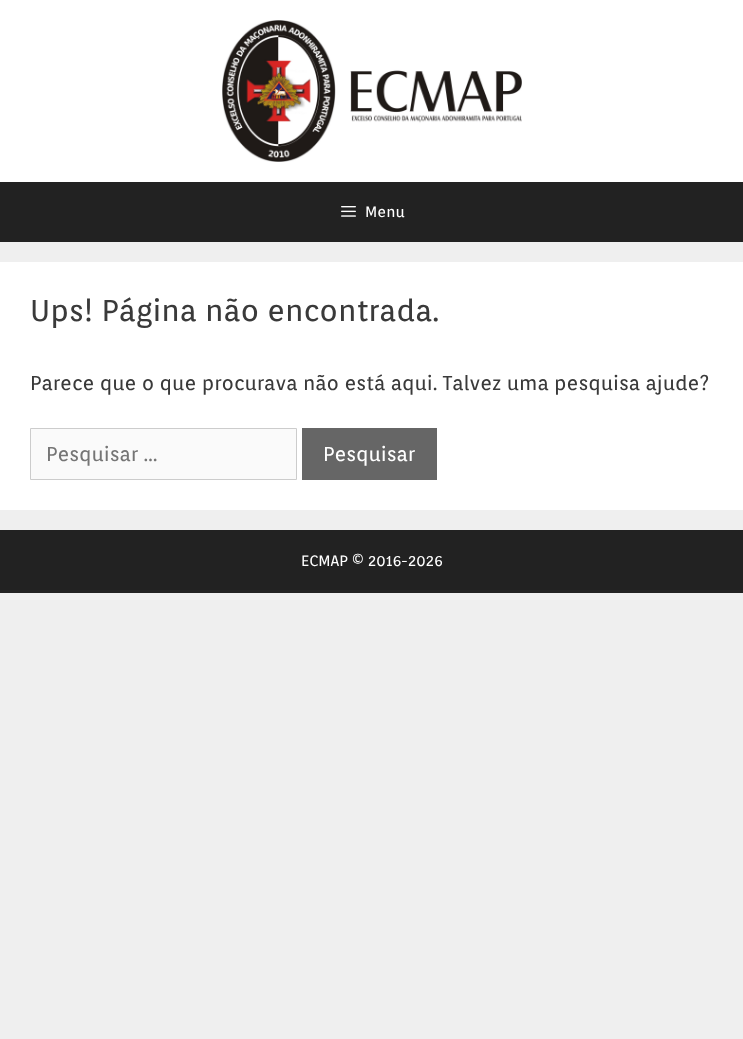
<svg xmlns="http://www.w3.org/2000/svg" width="743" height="1039">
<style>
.a{font:15px Orienta;fill:#fff}
.b{font:30px Orienta;fill:#3a3a3a}
.c{font:20px Orienta;fill:#3a3a3a}
.d{font:20px Orienta;fill:#757575}
.e{font:20px Orienta;fill:#fff}
</style>
<rect width="100%" height="100%" fill="#efefef"/>
<path fill="#fff" d="M0 0h743v182H0z"/>
<image href="1.png" x="222" y="20" width="300" height="142"/>
<path fill="#222" d="M0 182h743v60H0z"/>
<image href="2.png" x="341" y="206" width="15" height="11"/>
<path fill="#fff" d="M0 262h743v248H0z"/>
<path fill="#fafafa" stroke="#ccc" d="M30.5 428.5h266v51H30.5z"/>
<path fill="#666" d="M302 428h135v52H302z"/>
<path fill="#222" d="M0 530h743v63H0z"/>
<text class="a" x="365" y="217">Menu</text>
<text class="b" x="30" y="321">Ups! Página não encontrada.</text>
<text class="c" x="30" y="390">Parece que o que procurava não está aqui. Talvez uma pesquisa ajude?</text>
<text class="d" x="46" y="461">Pesquisar …</text>
<text class="e" x="323" y="461">Pesquisar</text>
<text class="a" x="301" y="566">ECMAP © 2016-2026</text>
</svg>
